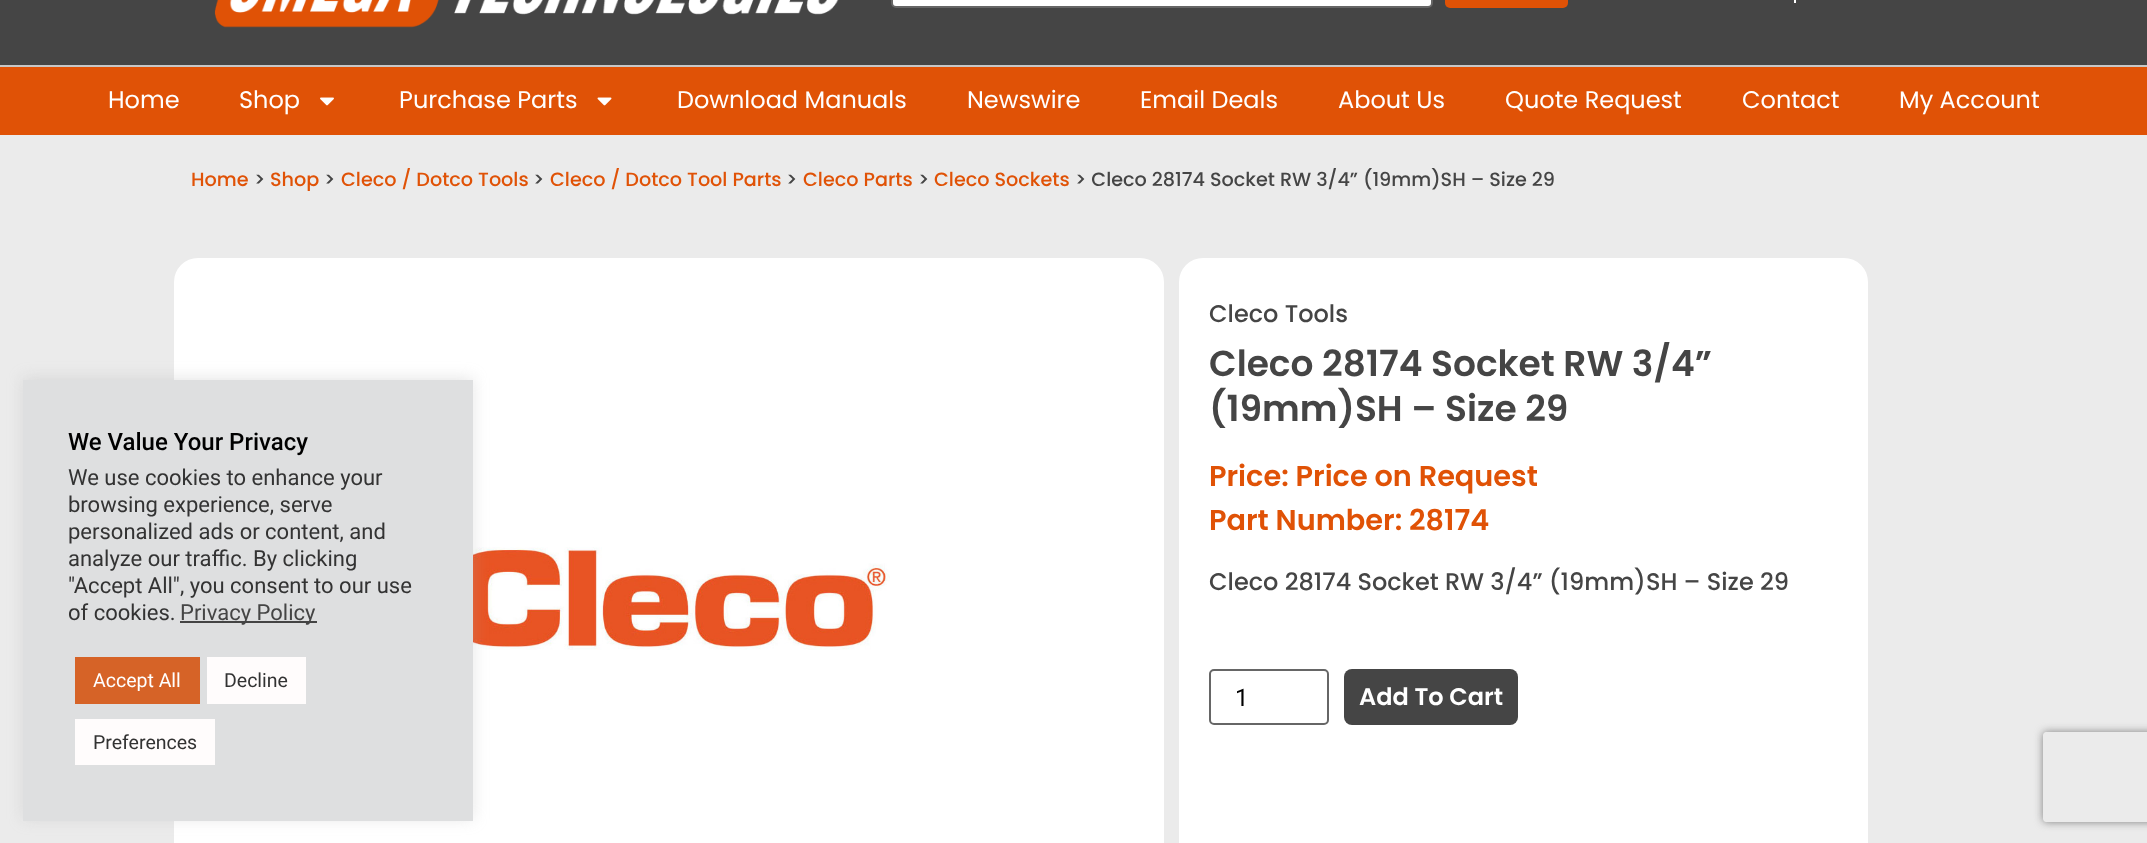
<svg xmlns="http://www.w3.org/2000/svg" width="2147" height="843">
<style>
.a{font:24px Poppins;fill:#fff}
.b{font:500 19.2px Poppins;fill:#e05206}
.c{font:500 19.2px Poppins;fill:#454545}
.d{font:500 24px Poppins;fill:#454545}
.e{font:600 36px Poppins;fill:#454545}
.f{font:600 28.75px Poppins;fill:#e05206}
.g{font:24px Roboto;fill:#000}
.h{font:600 24px Poppins;fill:#fff}
.i{font:500 24px Roboto;fill:#000}
.j{font:22px Roboto;fill:#333}
.k{font:22px Roboto;fill:#454545}
.l{font:19.5px Roboto;fill:#fff}
.m{font:19.5px Roboto;fill:#333}
</style>
<defs>
<clipPath id="clip1"><path d="M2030 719h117v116h-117zm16 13h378c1.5 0 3 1.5 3 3v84c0 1.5-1.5 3-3 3h-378c-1.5 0-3-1.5-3-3v-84c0-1.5 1.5-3 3-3z" clip-rule="evenodd"/></clipPath>
</defs>
<rect width="100%" height="100%" fill="#ebebeb"/>
<path fill="#454545" d="M0 0h2147v65H0z"/>
<image href="1.png" x="214" y="0" width="625" height="28"/>
<rect fill="#fff" stroke="#666" stroke-width="2" x="892" y="-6" width="540" height="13" rx="4"/>
<rect fill="#e05206" x="1445" y="-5" width="123" height="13" rx="5"/>
<path fill="#fff" d="M1794 0h2v3H1794z"/>
<path fill="#e05206" d="M0 67h2147v68H0z"/>
<path fill="#c7c7c7" d="M0 65h2147v2H0z"/>
<image href="2.png" x="320" y="97" width="14" height="9"/>
<image href="3.png" x="597" y="97" width="15" height="9"/>
<rect fill="#fff" x="174" y="258" width="990" height="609" rx="24"/>
<image href="4.png" x="473" y="547" width="417" height="103"/>
<rect fill="#fff" x="1179" y="258" width="689" height="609" rx="24"/>
<rect fill="none" stroke="#666" stroke-width="2" x="1210" y="670" width="118" height="54" rx="4"/>
<rect fill="#454545" x="1344" y="669" width="174" height="56" rx="8"/>
<path fill="#acabab4d" filter="blur(7.5px)" d="M23 378h450v441H23z"/>
<path fill="#dedfe0" d="M23 380h450v441H23z"/>
<path fill="#444" d="M180 621h137v2H180z"/>
<path fill="#d66327" d="M75 657h125v47H75z"/>
<path fill="#fffcfc" d="M207 657h99v47H207z"/>
<path fill="#fffcfc" d="M75 719h140v46H75z"/>
<g clip-path="url(#clip1)">
<rect fill="#808080" filter="blur(4px)" x="2043" y="732" width="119" height="90" rx="3"/>
</g>
<text class="a" x="108" y="108">Home</text>
<text class="a" x="239" y="108">Shop</text>
<text class="a" x="399" y="108">Purchase Parts</text>
<text class="a" x="677" y="108">Download Manuals</text>
<text class="a" x="967" y="108">Newswire</text>
<text class="a" x="1140" y="108">Email Deals</text>
<text class="a" x="1338" y="108">About Us</text>
<text class="a" x="1505" y="108">Quote Request</text>
<text class="a" x="1742" y="108">Contact</text>
<text class="a" x="1899" y="108">My Account</text>
<text class="b" x="191" y="186">Home</text>
<text class="c" x="254" y="186">&gt;</text>
<text class="b" x="270" y="186">Shop</text>
<text class="c" x="324" y="186">&gt;</text>
<text class="b" x="341" y="186">Cleco / Dotco Tools</text>
<text class="c" x="533" y="186">&gt;</text>
<text class="b" x="550" y="186">Cleco / Dotco Tool Parts</text>
<text class="c" x="786" y="186">&gt;</text>
<text class="b" x="803" y="186">Cleco Parts</text>
<text class="c" x="918" y="186">&gt;</text>
<text class="b" x="934" y="186">Cleco Sockets</text>
<text class="c" x="1075" y="186">&gt; Cleco 28174 Socket RW 3/4” (19mm)SH – Size 29</text>
<text class="d" x="1209" y="322">Cleco Tools</text>
<text class="e" x="1209" y="376">Cleco 28174 Socket RW 3/4”</text>
<text class="e" x="1209" y="421">(19mm)SH – Size 29</text>
<text class="f" x="1209" y="486">Price: Price on Request</text>
<text class="f" x="1209" y="530">Part Number: 28174</text>
<text class="d" x="1209" y="590">Cleco 28174 Socket RW 3/4” (19mm)SH – Size 29</text>
<text class="g" x="1235" y="706">1</text>
<text class="h" x="1359" y="705">Add To Cart</text>
<text class="i" x="68" y="450">We Value Your Privacy</text>
<text class="j" x="68" y="485">We use cookies to enhance your</text>
<text class="j" x="68" y="512">browsing experience, serve</text>
<text class="j" x="68" y="539">personalized ads or content, and</text>
<text class="j" x="68" y="566">analyze our traffic. By clicking</text>
<text class="j" x="68" y="593">"Accept All", you consent to our use</text>
<text class="j" x="68" y="620">of cookies.</text>
<text class="k" x="180" y="620">Privacy Policy</text>
<text class="l" x="93" y="687">Accept All</text>
<text class="m" x="224" y="687">Decline</text>
<text class="m" x="93" y="749">Preferences</text>
</svg>
